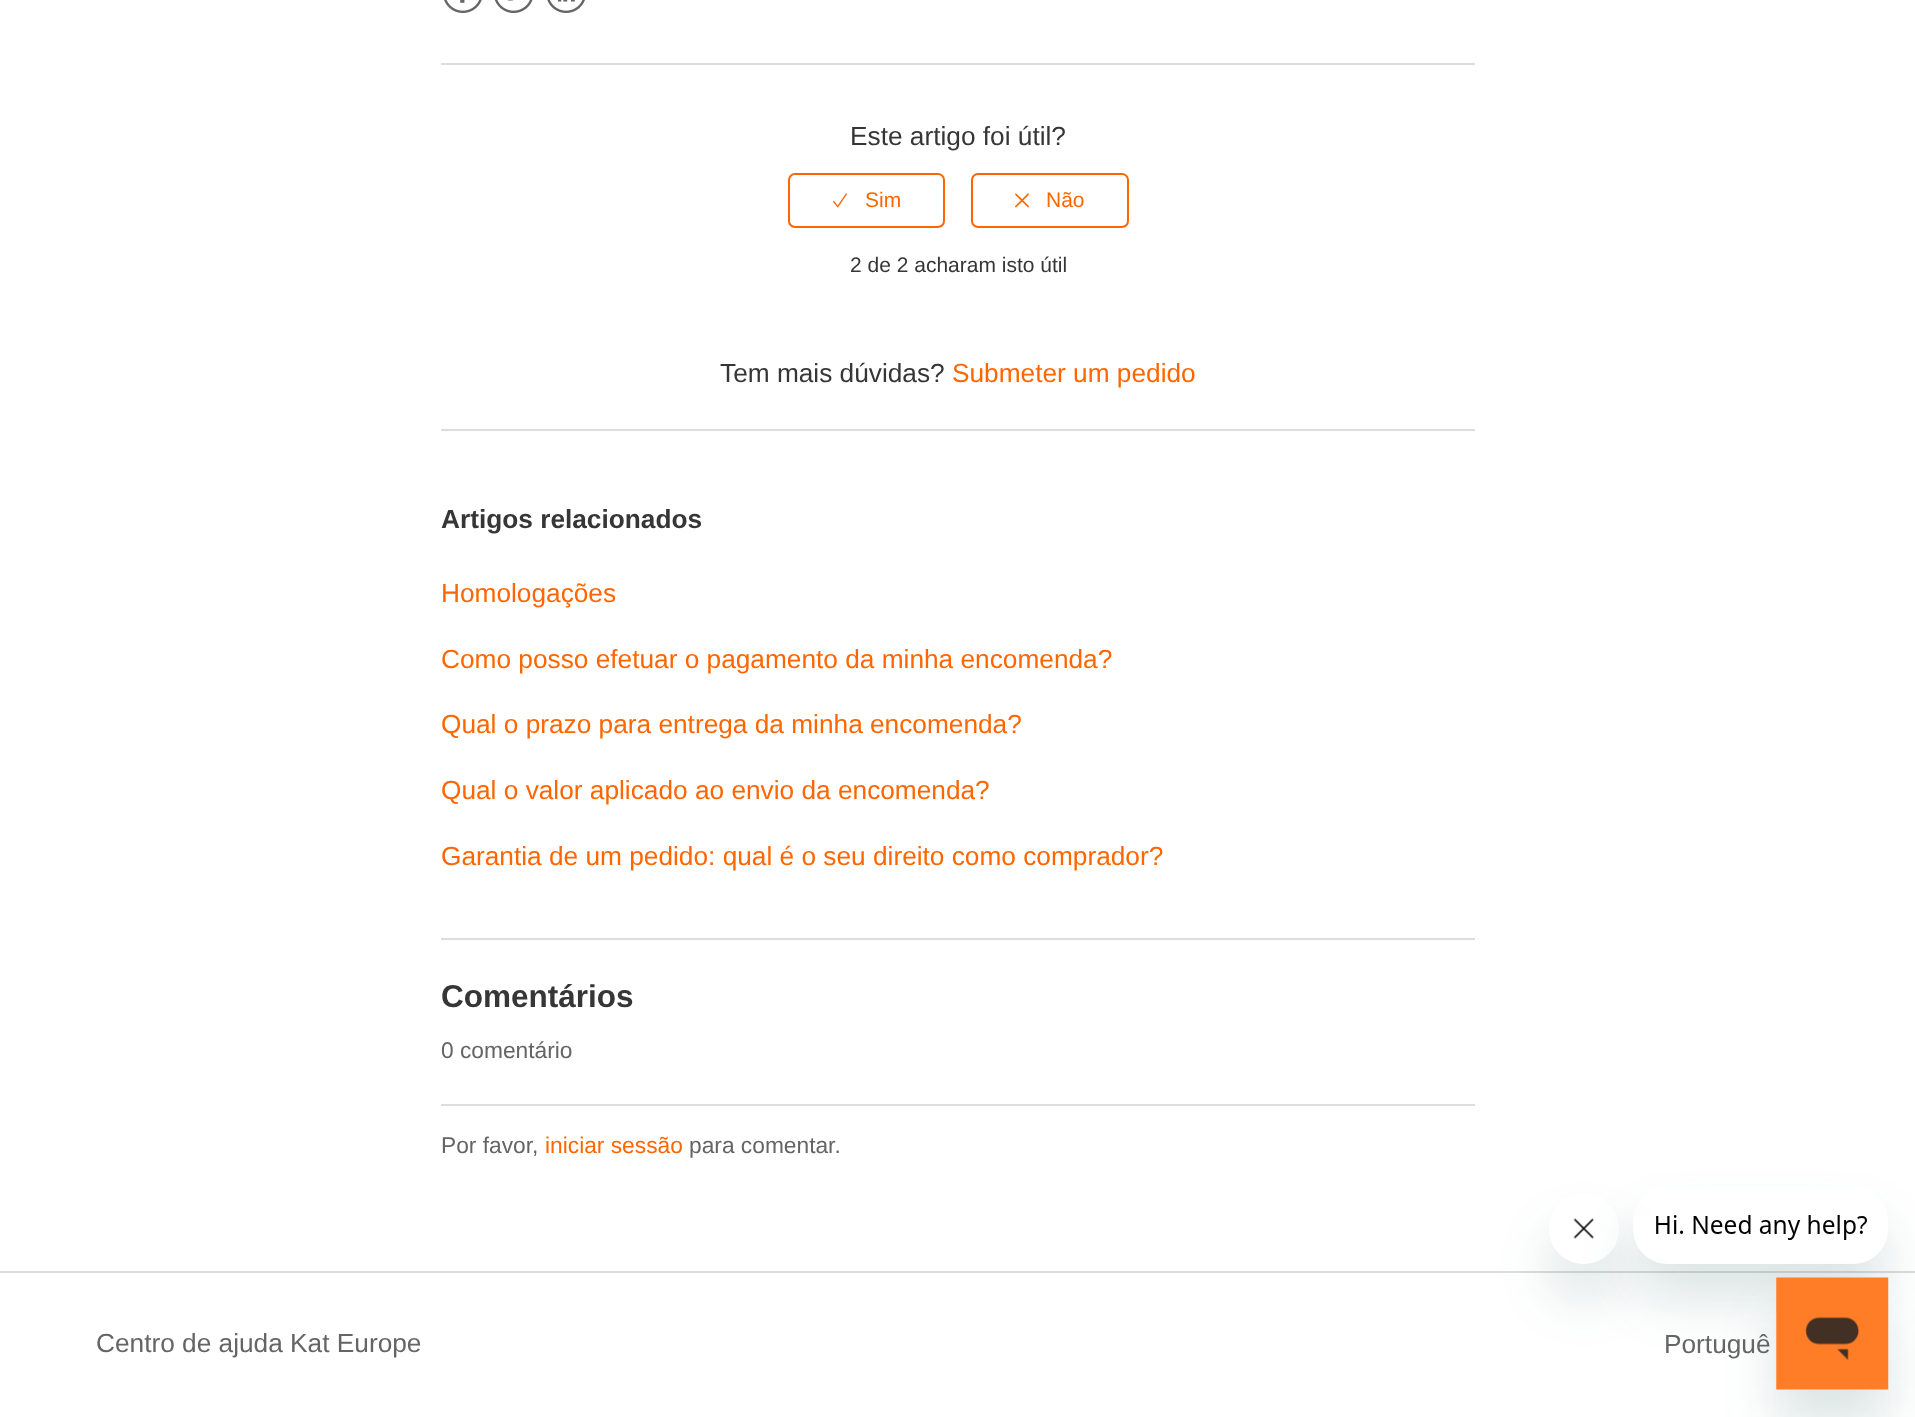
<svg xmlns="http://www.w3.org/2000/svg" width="1915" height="1417">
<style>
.a{font:26.25px Liberation Sans;fill:#363636}
.b{font:21px Liberation Sans;fill:#f60}
.c{font:21px Liberation Sans;fill:#363636}
.d{font:26.25px Liberation Sans;fill:#f60}
.e{font:bold 26.25px Liberation Sans;fill:#363636}
.f{font:bold 31.5px Liberation Sans;fill:#363636}
.g{font:22.75px Liberation Sans;fill:#656565}
.h{font:22.75px Liberation Sans;fill:#f60}
.i{font:26.25px Liberation Sans;fill:#656565}
</style>
<defs>
<clipPath id="clip1"><path d="M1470 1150h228v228h-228zm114 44c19.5 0 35 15.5 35 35c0 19.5-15.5 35-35 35c-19.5 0-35-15.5-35-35c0-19.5 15.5-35 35-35z" clip-rule="evenodd"/></clipPath>
<clipPath id="clip2"><path d="M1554 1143h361v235h-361zm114 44h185c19.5 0 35 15.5 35 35v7c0 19.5-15.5 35-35 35h-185c-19.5 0-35-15.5-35-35v-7c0-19.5 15.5-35 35-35z" clip-rule="evenodd"/></clipPath>
</defs>
<rect width="100%" height="100%" fill="#fff"/>
<image href="1.png" x="444" y="0" width="38" height="13"/>
<image href="2.png" x="494" y="0" width="39" height="13"/>
<image href="3.png" x="547" y="0" width="38" height="13"/>
<path fill="#ddd" d="M441 63h1034v2H441z"/>
<rect fill="none" stroke="#f60" stroke-width="2" x="789" y="174" width="155" height="53" rx="6"/>
<image href="4.png" x="833" y="193" width="14" height="15"/>
<rect fill="none" stroke="#f60" stroke-width="2" x="972" y="174" width="156" height="53" rx="6"/>
<image href="5.png" x="1015" y="193" width="14" height="15"/>
<path fill="#ddd" d="M441 429h1034v2H441z"/>
<path fill="#ddd" d="M441 938h1034v2H441z"/>
<path fill="#ddd" d="M441 1104h1034v2H441z"/>
<path fill="#ddd" d="M0 1271h1915v2H0z"/>
<g clip-path="url(#clip1)">
<rect fill="#17494d26" filter="blur(26px)" x="1549" y="1229" width="70" height="70" rx="35"/>
</g>
<image href="7.png" x="1573" y="1218" width="21" height="46"/>
<g clip-path="url(#clip2)">
<rect fill="#17494d26" filter="blur(26px)" x="1633" y="1222" width="255" height="77" rx="35"/>
</g>
<image href="6.png" x="1634" y="1215" width="233" height="43"/>
<path fill="#17494d26" filter="blur(26px)" d="M1776 1313h112v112H1776z"/>
<image href="8.png" x="1776" y="1277" width="113" height="113"/>
<text class="a" x="850" y="145">Este artigo foi útil?</text>
<text class="b" x="865" y="207">Sim</text>
<text class="b" x="1046" y="207">Não</text>
<text class="c" x="850" y="272">2 de 2 acharam isto útil</text>
<text class="a" x="720" y="382">Tem mais dúvidas?</text>
<text class="d" x="952" y="382">Submeter um pedido</text>
<text class="e" x="441" y="528">Artigos relacionados</text>
<text class="d" x="441" y="602">Homologações</text>
<text class="d" x="441" y="668">Como posso efetuar o pagamento da minha encomenda?</text>
<text class="d" x="441" y="733">Qual o prazo para entrega da minha encomenda?</text>
<text class="d" x="441" y="799">Qual o valor aplicado ao envio da encomenda?</text>
<text class="d" x="441" y="865">Garantia de um pedido: qual é o seu direito como comprador?</text>
<text class="f" x="441" y="1007">Comentários</text>
<text class="g" x="441" y="1058">0 comentário</text>
<text class="g" x="441" y="1153">Por favor,</text>
<text class="h" x="545" y="1153">iniciar sessão</text>
<text class="g" x="689" y="1153">para comentar.</text>
<text class="i" x="96" y="1352">Centro de ajuda Kat Europe</text>
<text class="i" x="1664" y="1353">Portuguê</text>
</svg>
